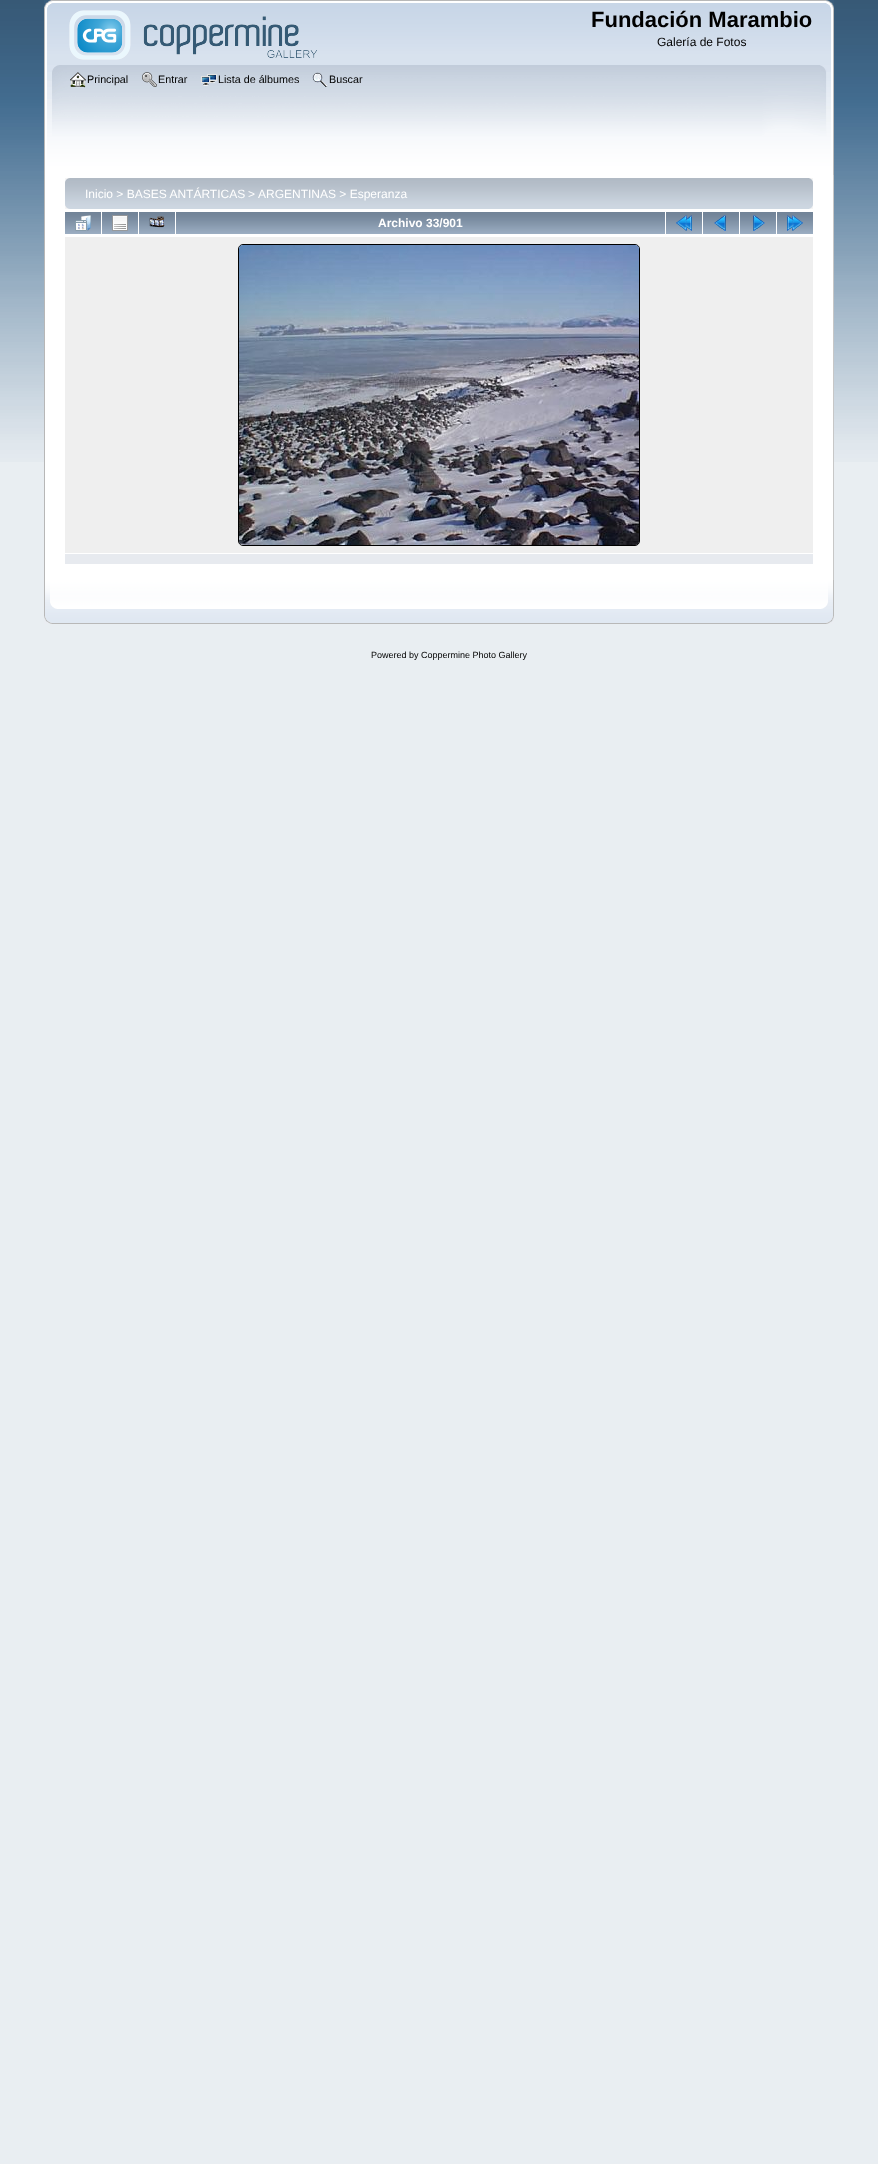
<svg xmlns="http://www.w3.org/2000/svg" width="878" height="2164">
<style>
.a{font:bold 22px Liberation Sans;fill:#000}
.b{font:12px Liberation Sans;fill:#000}
.c{font:10.75px Liberation Sans;fill:#000}
.d{font:12px Liberation Sans;fill:#fff}
.e{font:bold 12px Liberation Sans;fill:#fff}
.f{font:9px Liberation Sans;fill:#000}
</style>
<rect width="100%" height="100%" fill="#e9eef2"/>
<image href="1.png" x="0" y="0" width="878" height="462"/>
<image href="2.png" x="44" y="0" width="782" height="65"/>
<image href="3.png" x="826" y="0" width="8" height="65"/>
<image href="4.png" x="69" y="10" width="248" height="50"/>
<image href="5.png" x="44" y="65" width="776" height="110"/>
<image href="6.png" x="820" y="65" width="14" height="110"/>
<image href="7.png" x="70" y="72" width="16" height="16"/>
<image href="8.png" x="142" y="72" width="15" height="15"/>
<image href="9.png" x="201" y="74" width="16" height="12"/>
<image href="10.png" x="312" y="72" width="16" height="15"/>
<path fill="#fff" d="M45 175h788v405H45z"/>
<path fill="#b7b7b7" d="M44 175h1v405H44z"/>
<path fill="#c7c7c7" d="M833 175h1v405H833z"/>
<image href="11.png" x="65" y="178" width="744" height="31"/>
<image href="12.png" x="809" y="178" width="4" height="31"/>
<image href="13.png" x="65" y="212" width="36" height="22"/>
<image href="14.png" x="75" y="215" width="16" height="16"/>
<image href="13.png" x="102" y="212" width="36" height="22"/>
<image href="15.png" x="112" y="215" width="16" height="16"/>
<image href="13.png" x="139" y="212" width="36" height="22"/>
<image href="16.png" x="149" y="216" width="16" height="12"/>
<image href="17.png" x="176" y="212" width="489" height="22"/>
<image href="13.png" x="666" y="212" width="36" height="22"/>
<image href="18.png" x="676" y="215" width="16" height="16"/>
<image href="13.png" x="703" y="212" width="36" height="22"/>
<image href="19.png" x="714" y="215" width="12" height="16"/>
<image href="13.png" x="740" y="212" width="36" height="22"/>
<image href="20.png" x="753" y="215" width="12" height="16"/>
<image href="13.png" x="777" y="212" width="36" height="22"/>
<image href="21.png" x="787" y="215" width="16" height="16"/>
<path fill="#efefef" d="M65 237h748v316H65z"/>
<rect fill="none" stroke="#000" x="238.5" y="244.5" width="401" height="301" rx="4.5"/>
<image href="22.png" x="239" y="245" width="400" height="300"/>
<path fill="#e7eaef" d="M65 554h748v10H65z"/>
<image href="23.png" x="44" y="580" width="777" height="44"/>
<image href="24.png" x="821" y="580" width="13" height="44"/>
<text class="a" x="591" y="27">Fundación Marambio</text>
<text class="b" x="657" y="46">Galería de Fotos</text>
<text class="c" x="87" y="83">Principal</text>
<text class="c" x="158" y="83">Entrar</text>
<text class="c" x="218" y="83">Lista de álbumes</text>
<text class="c" x="329" y="83">Buscar</text>
<text class="d" x="85" y="198">Inicio &gt; BASES ANTÁRTICAS</text>
<text class="d" x="248" y="198">&gt;</text>
<text class="d" x="258" y="198">ARGENTINAS &gt; Esperanza</text>
<text class="e" x="378" y="227">Archivo 33/901</text>
<text class="f" x="371" y="658">Powered by Coppermine Photo Gallery</text>
</svg>
